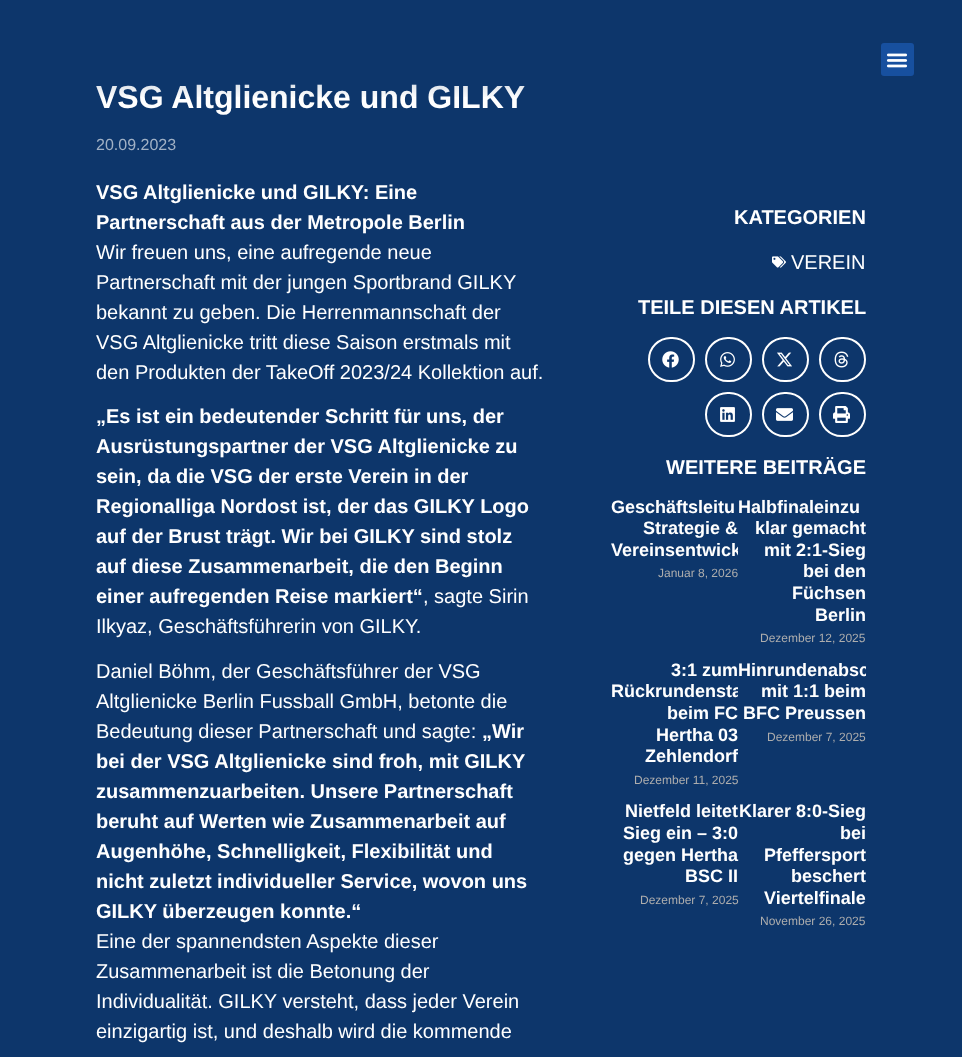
<svg xmlns="http://www.w3.org/2000/svg" width="962" height="1057">
<style>
.a{font:bold 32px Liberation Sans;fill:#fff}
.b{font:16px Liberation Sans;fill:#a1b1c5}
.c{font:bold 20px Liberation Sans;fill:#fff}
.d{font:20px Liberation Sans;fill:#fff}
.e{font:bold 18px Liberation Sans;fill:#fff}
.f{font:12px Liberation Sans;fill:#adadad}
</style>
<defs>
<linearGradient id="g1" gradientUnits="userSpaceOnUse" x1="481" y1="0" x2="481" y2="110"><stop offset="0" stop-color="#0d366b"/><stop offset="0.5" stop-color="#0d366b" stop-opacity="0.5"/><stop offset="0.8" stop-color="#0d366b" stop-opacity="0.1"/><stop offset="0.9" stop-color="#0d366b" stop-opacity="0"/></linearGradient>
<clipPath id="clip1"><path d="M611 497h127v163H611z"/></clipPath>
<clipPath id="clip2"><path d="M611 660h127v141H611z"/></clipPath>
<clipPath id="clip3"><path d="M738 660h128v141H738z"/></clipPath>
</defs>
<rect width="100%" height="100%" fill="#0d366b"/>
<rect fill="#17509f" x="881" y="43" width="33" height="33" rx="3"/>
<image href="1.png" x="886" y="53" width="22" height="15"/>
<image href="2.png" x="772" y="256" width="14" height="12"/>
<rect fill="none" stroke="#fff" stroke-width="2" x="649" y="338" width="45" height="43" rx="21.5"/>
<image href="3.png" x="662" y="351" width="17" height="17"/>
<rect fill="none" stroke="#fff" stroke-width="2" x="706" y="338" width="45" height="43" rx="21.5"/>
<image href="4.png" x="720" y="352" width="15" height="15"/>
<rect fill="none" stroke="#fff" stroke-width="2" x="763" y="338" width="45" height="43" rx="21.5"/>
<image href="5.png" x="777" y="352" width="15" height="15"/>
<rect fill="none" stroke="#fff" stroke-width="2" x="820" y="338" width="45" height="43" rx="21.5"/>
<image href="6.png" x="834" y="351" width="15" height="17"/>
<rect fill="none" stroke="#fff" stroke-width="2" x="706" y="393" width="45" height="43" rx="21.5"/>
<image href="7.png" x="720" y="407" width="15" height="15"/>
<rect fill="none" stroke="#fff" stroke-width="2" x="763" y="393" width="45" height="43" rx="21.5"/>
<image href="8.png" x="776" y="408" width="17" height="13"/>
<rect fill="none" stroke="#fff" stroke-width="2" x="820" y="393" width="45" height="43" rx="21.5"/>
<image href="9.png" x="833" y="406" width="17" height="17"/>
<text class="a" x="96" y="108">VSG Altglienicke und GILKY</text>
<path fill="url(#g1)" d="M96 84h429v13H96z"/>
<text class="b" x="96" y="150">20.09.2023</text>
<text class="c" x="96" y="199">VSG Altglienicke und GILKY: Eine</text>
<text class="c" x="96" y="229">Partnerschaft aus der Metropole Berlin</text>
<text class="d" x="96" y="259">Wir freuen uns, eine aufregende neue</text>
<text class="d" x="96" y="289">Partnerschaft mit der jungen Sportbrand GILKY</text>
<text class="d" x="96" y="319">bekannt zu geben. Die Herrenmannschaft der</text>
<text class="d" x="96" y="349">VSG Altglienicke tritt diese Saison erstmals mit</text>
<text class="d" x="96" y="379">den Produkten der TakeOff 2023/24 Kollektion auf.</text>
<text class="c" x="96" y="423">„Es ist ein bedeutender Schritt für uns, der</text>
<text class="c" x="96" y="453">Ausrüstungspartner der VSG Altglienicke zu</text>
<text class="c" x="96" y="483">sein, da die VSG der erste Verein in der</text>
<text class="c" x="96" y="513">Regionalliga Nordost ist, der das GILKY Logo</text>
<text class="c" x="96" y="543">auf der Brust trägt. Wir bei GILKY sind stolz</text>
<text class="c" x="96" y="573">auf diese Zusammenarbeit, die den Beginn</text>
<text class="c" x="96" y="603">einer aufregenden Reise markiert“</text>
<text class="d" x="423" y="603">, sagte Sirin</text>
<text class="d" x="96" y="633">Ilkyaz, Geschäftsführerin von GILKY.</text>
<text class="d" x="96" y="678">Daniel Böhm, der Geschäftsführer der VSG</text>
<text class="d" x="96" y="708">Altglienicke Berlin Fussball GmbH, betonte die</text>
<text class="d" x="96" y="738">Bedeutung dieser Partnerschaft und sagte:</text>
<text class="c" x="482" y="738">„Wir</text>
<text class="c" x="96" y="768">bei der VSG Altglienicke sind froh, mit GILKY</text>
<text class="c" x="96" y="798">zusammenzuarbeiten. Unsere Partnerschaft</text>
<text class="c" x="96" y="828">beruht auf Werten wie Zusammenarbeit auf</text>
<text class="c" x="96" y="858">Augenhöhe, Schnelligkeit, Flexibilität und</text>
<text class="c" x="96" y="888">nicht zuletzt individueller Service, wovon uns</text>
<text class="c" x="96" y="918">GILKY überzeugen konnte.“</text>
<text class="d" x="96" y="948">Eine der spannendsten Aspekte dieser</text>
<text class="d" x="96" y="978">Zusammenarbeit ist die Betonung der</text>
<text class="d" x="96" y="1008">Individualität. GILKY versteht, dass jeder Verein</text>
<text class="d" x="96" y="1038">einzigartig ist, und deshalb wird die kommende</text>
<text class="c" x="734" y="224">KATEGORIEN</text>
<text class="d" x="791" y="269">VEREIN</text>
<text class="c" x="638" y="314">TEILE DIESEN ARTIKEL</text>
<text class="c" x="666" y="474">WEITERE BEITRÄGE</text>
<text class="e" x="611" y="513">Geschäftsleitu</text>
<text class="e" x="643" y="534">Strategie &amp;</text>
<g clip-path="url(#clip1)">
<text class="e" x="611" y="556">Vereinsentwick</text>
</g>
<text class="f" x="658" y="577">Januar 8, 2026</text>
<text class="e" x="738" y="513">Halbfinaleinzu</text>
<text class="e" x="755" y="534">klar gemacht</text>
<text class="e" x="764" y="556">mit 2:1-Sieg</text>
<text class="e" x="803" y="577">bei den</text>
<text class="e" x="792" y="599">Füchsen</text>
<text class="e" x="815" y="621">Berlin</text>
<text class="f" x="760" y="642">Dezember 12, 2025</text>
<text class="e" x="671" y="676">3:1 zum</text>
<g clip-path="url(#clip2)">
<text class="e" x="611" y="697">Rückrundensta</text>
</g>
<text class="e" x="667" y="719">beim FC</text>
<text class="e" x="656" y="741">Hertha 03</text>
<g clip-path="url(#clip2)">
<text class="e" x="645" y="762">Zehlendorf</text>
</g>
<text class="f" x="634" y="784">Dezember 11, 2025</text>
<g clip-path="url(#clip3)">
<text class="e" x="738" y="676">Hinrundenabsc</text>
</g>
<text class="e" x="761" y="697">mit 1:1 beim</text>
<text class="e" x="743" y="719">BFC Preussen</text>
<text class="f" x="767" y="741">Dezember 7, 2025</text>
<text class="e" x="625" y="817">Nietfeld leitet</text>
<text class="e" x="623" y="839">Sieg ein – 3:0</text>
<text class="e" x="623" y="861">gegen Hertha</text>
<text class="e" x="685" y="882">BSC II</text>
<text class="f" x="640" y="904">Dezember 7, 2025</text>
<text class="e" x="739" y="817">Klarer 8:0-Sieg</text>
<text class="e" x="840" y="839">bei</text>
<text class="e" x="764" y="861">Pfeffersport</text>
<text class="e" x="791" y="882">beschert</text>
<text class="e" x="764" y="904">Viertelfinale</text>
<text class="f" x="760" y="925">November 26, 2025</text>
</svg>
